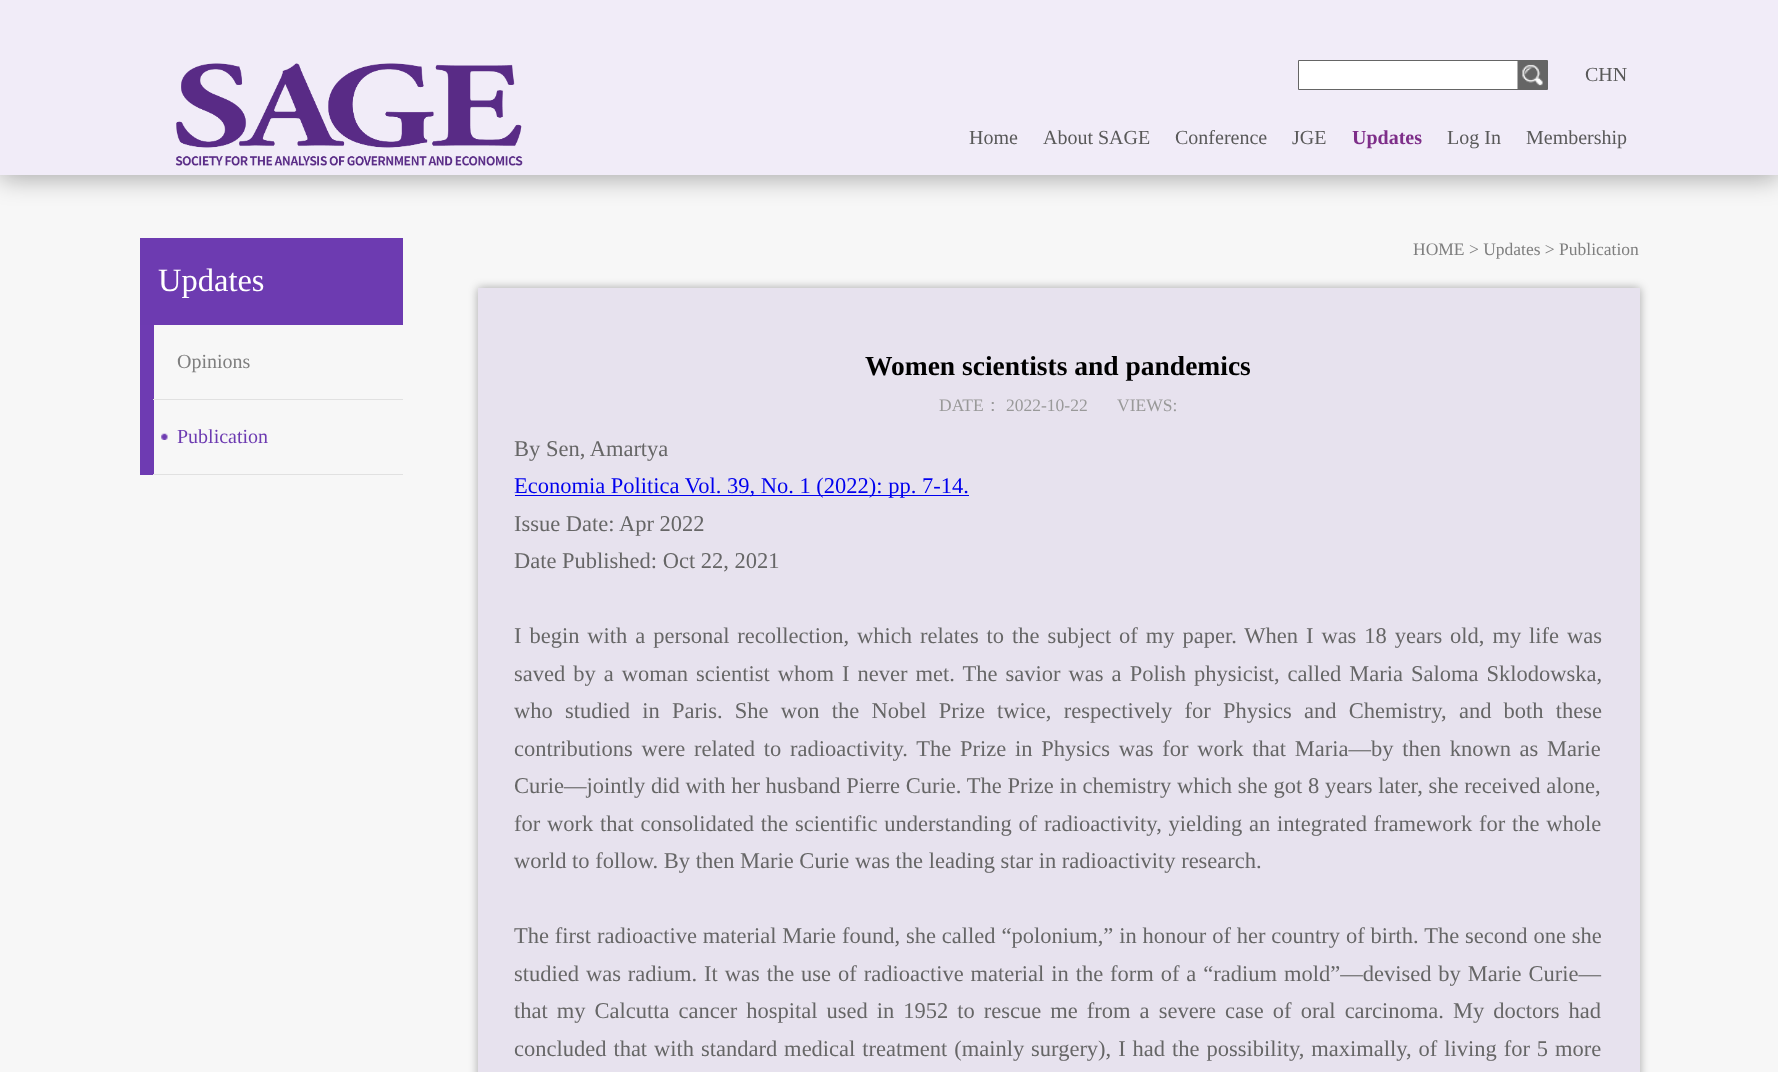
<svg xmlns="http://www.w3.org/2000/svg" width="1778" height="1072">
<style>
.a{font:20px Liberation Serif;fill:#595959}
.b{font:bold 20px Liberation Serif;fill:#7e2e89}
.c{font:32.5px Liberation Serif;fill:#fff}
.d{font:20px Liberation Serif;fill:#7f7f7f}
.e{font:20px Liberation Serif;fill:#6d3bb1}
.f{font:17.5px Liberation Serif;fill:#7f7f7f}
.g{font:bold 27.5px Liberation Serif;fill:#000}
.h{font:17.5px Liberation Serif;fill:#999}
.i{font:500 17.5px WenQuanYi Zen Hei;fill:#999}
.j{font:22.5px Liberation Serif;fill:#666}
.k{font:22.5px Liberation Serif;fill:#00e}
</style>
<rect width="100%" height="100%" fill="#f7f7f7"/>
<path fill="#00000054" filter="blur(13px)" d="M0 3h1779v175H0z"/>
<path fill="#f1ecf8" d="M0 0h1778v175H0z"/>
<image href="1.png" x="175" y="63" width="348" height="103"/>
<path fill="#fff" d="M1299 61h219v28H1299z"/>
<path fill="none" stroke="#656565" d="M1298.5 60.5h249v29H1298.5z"/>
<image href="2.png" x="1517" y="61" width="30" height="28"/>
<path fill="#6d3bb1" d="M140 238h263v87H140z"/>
<path fill="#6e3bb2" d="M140 325h14v150H140z"/>
<path fill="#e1e1e1" d="M153 399h250v1H153z"/>
<image href="3.png" x="161" y="433" width="7" height="7"/>
<path fill="#e1e1e1" d="M153 474h250v1H153z"/>
<path fill="#00000054" filter="blur(5px)" d="M478 288h1162v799H478z"/>
<path fill="#e7e2ee" d="M478 288h1162v784H478z"/>
<path fill="#00e" d="M515 495h454v1H515z"/>
<text class="a" x="1585" y="81">CHN</text>
<text class="a" x="969" y="144">Home</text>
<text class="a" x="1043" y="144">About SAGE</text>
<text class="a" x="1175" y="144">Conference</text>
<text class="a" x="1292" y="144">JGE</text>
<text class="b" x="1352" y="144">Updates</text>
<text class="a" x="1447" y="144">Log In</text>
<text class="a" x="1526" y="144">Membership</text>
<text class="c" x="158" y="291">Updates</text>
<text class="d" x="177" y="368">Opinions</text>
<text class="e" x="177" y="443">Publication</text>
<text class="f" x="1413" y="255">HOME &gt; Updates &gt; Publication</text>
<text class="g" x="865" y="375">Women scientists and pandemics</text>
<text class="h" x="939" y="411">DATE</text>
<text class="i" x="984" y="411">：</text>
<text class="h" x="1006" y="411">2022-10-22</text>
<text class="h" x="1117" y="411">VIEWS:</text>
<text class="j" x="514" y="456">By Sen, Amartya</text>
<text class="k" x="514" y="493">Economia Politica Vol. 39, No. 1 (2022): pp. 7-14.</text>
<text class="j" x="514" y="531">Issue Date: Apr 2022</text>
<text class="j" x="514" y="568">Date Published: Oct 22, 2021</text>
<text class="j" x="514" y="643" word-spacing="2.3">I begin with a personal recollection, which relates to the subject of my paper. When I was 18 years old, my life was</text>
<text class="j" x="514" y="681" word-spacing="2.4">saved by a woman scientist whom I never met. The savior was a Polish physicist, called Maria Saloma Sklodowska,</text>
<text class="j" x="514" y="718" word-spacing="6.6">who studied in Paris. She won the Nobel Prize twice, respectively for Physics and Chemistry, and both these</text>
<text class="j" x="514" y="756" word-spacing="3.1">contributions were related to radioactivity. The Prize in Physics was for work that Maria—by then known as Marie</text>
<text class="j" x="514" y="793" word-spacing="0.1">Curie—jointly did with her husband Pierre Curie. The Prize in chemistry which she got 8 years later, she received alone,</text>
<text class="j" x="514" y="831" word-spacing="1.1">for work that consolidated the scientific understanding of radioactivity, yielding an integrated framework for the whole</text>
<text class="j" x="514" y="868">world to follow. By then Marie Curie was the leading star in radioactivity research.</text>
<text class="j" x="514" y="943" word-spacing="0.25">The first radioactive material Marie found, she called “polonium,” in honour of her country of birth. The second one she</text>
<text class="j" x="514" y="981" word-spacing="1.3">studied was radium. It was the use of radioactive material in the form of a “radium mold”—devised by Marie Curie—</text>
<text class="j" x="514" y="1018" word-spacing="3.4">that my Calcutta cancer hospital used in 1952 to rescue me from a severe case of oral carcinoma. My doctors had</text>
<text class="j" x="514" y="1056" word-spacing="1.3">concluded that with standard medical treatment (mainly surgery), I had the possibility, maximally, of living for 5 more</text>
</svg>
